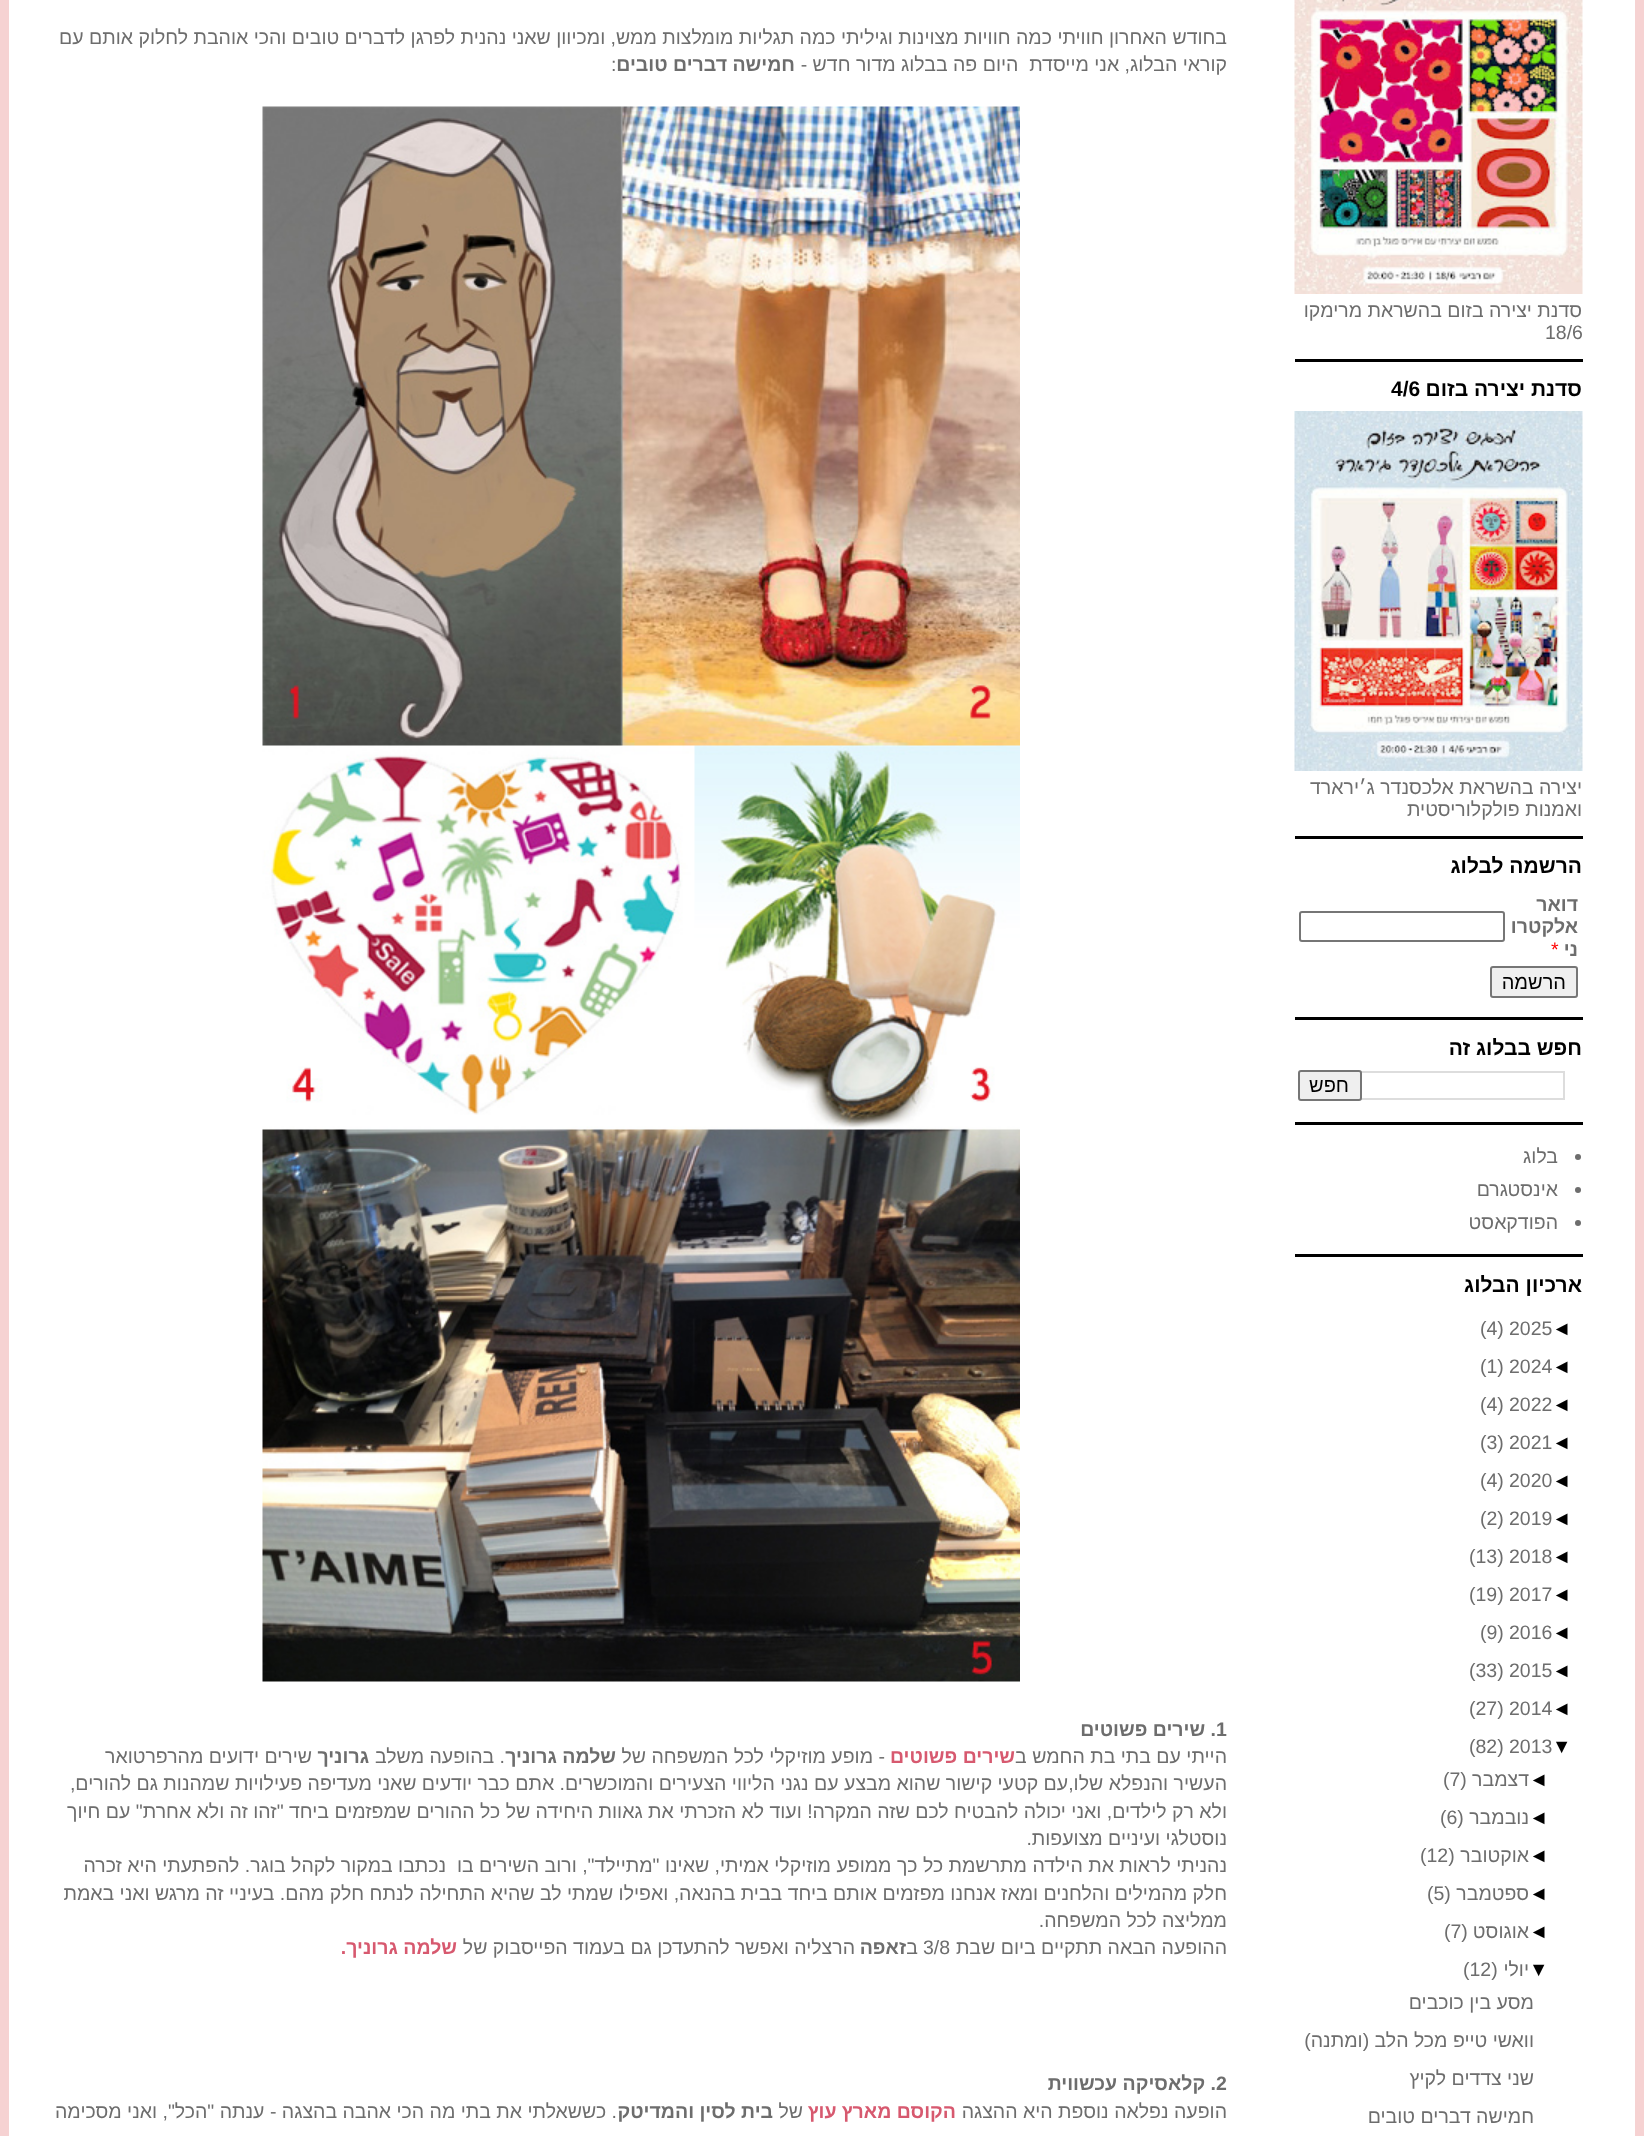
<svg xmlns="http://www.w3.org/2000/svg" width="1644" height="2136">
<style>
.a{font:19.5px Liberation Sans;direction:rtl;fill:#6d6d6d}
.b{font:19.5px Liberation Sans;fill:#6d6d6d}
.c{font:bold 21px Liberation Sans;direction:rtl;fill:#000}
.d{font:bold 21px Liberation Sans;fill:#000}
.e{font:bold 19.5px Liberation Sans;direction:rtl;fill:#6d6d6d}
.f{font:19.5px Liberation Sans;fill:#f00}
.g{font:20px Liberation Sans;direction:rtl;fill:#000}
.h{font:19.5px Liberation Sans;fill:#000}
.i{font:bold 19.5px Liberation Sans;fill:#6d6d6d}
.j{font:bold 19.5px Liberation Sans;direction:rtl;fill:#d7596f}
</style>
<rect width="100%" height="100%" fill="#f6d2d2"/>
<path fill="#fff" d="M9 0h1626v2136H9z"/>
<path fill="#000" d="M1295 359h288v3H1295z"/>
<image href="1.png" x="1294" y="0" width="289" height="294"/>
<path fill="#000" d="M1295 836h288v3H1295z"/>
<image href="2.png" x="1294" y="411" width="289" height="360"/>
<path fill="#000" d="M1295 1017h288v3H1295z"/>
<rect fill="none" stroke="#767676" stroke-width="2" x="1300" y="912" width="204" height="29" rx="2"/>
<rect fill="#efefef" stroke="#767676" stroke-width="2" x="1491" y="967" width="86" height="30" rx="2"/>
<path fill="#000" d="M1295 1122h288v3H1295z"/>
<path fill="none" stroke="#ddd" stroke-width="2" d="M1344 1072h220v27H1344z"/>
<rect fill="#efefef" stroke="#767676" stroke-width="2" x="1299" y="1071" width="62" height="29" rx="2"/>
<path fill="#000" d="M1295 1254h288v3H1295z"/>
<circle fill="#6d6d6d" cx="1578" cy="1157" r="3"/>
<circle fill="#6d6d6d" cx="1578" cy="1190" r="3"/>
<circle fill="#6d6d6d" cx="1578" cy="1223" r="3"/>
<image href="3.png" x="262" y="106" width="758" height="1576"/>
<text class="a" x="1582" y="317">סדנת יצירה בזום בהשראת מרימקו</text>
<text class="b" x="1545" y="339">18/6</text>
<text class="c" x="1582" y="396">סדנת יצירה בזום</text>
<text class="d" x="1391" y="396">4/6</text>
<text class="a" x="1582" y="794">יצירה בהשראת אלכסנדר ג׳ירארד</text>
<text class="a" x="1582" y="816">ואמנות פולקלוריסטית</text>
<text class="c" x="1582" y="873">הרשמה לבלוג</text>
<text class="e" x="1578" y="911">דואר</text>
<text class="e" x="1578" y="933">אלקטרו</text>
<text class="e" x="1578" y="956">ני</text>
<text class="f" x="1551" y="956">*</text>
<text class="g" x="1566" y="989">הרשמה</text>
<text class="c" x="1582" y="1055">חפש בבלוג זה</text>
<text class="g" x="1349" y="1092">חפש</text>
<text class="a" x="1558" y="1163">בלוג</text>
<text class="a" x="1558" y="1196">אינסטגרם</text>
<text class="a" x="1558" y="1229">הפודקאסט</text>
<text class="c" x="1582" y="1292">ארכיון הבלוג</text>
<text class="h" x="1552" y="1335">◄</text>
<text class="b" x="1509" y="1335">2025</text>
<text class="b" x="1480" y="1335">(4)</text>
<text class="h" x="1552" y="1373">◄</text>
<text class="b" x="1509" y="1373">2024</text>
<text class="b" x="1480" y="1373">(1)</text>
<text class="h" x="1552" y="1411">◄</text>
<text class="b" x="1509" y="1411">2022</text>
<text class="b" x="1480" y="1411">(4)</text>
<text class="h" x="1552" y="1449">◄</text>
<text class="b" x="1509" y="1449">2021</text>
<text class="b" x="1480" y="1449">(3)</text>
<text class="h" x="1552" y="1487">◄</text>
<text class="b" x="1509" y="1487">2020</text>
<text class="b" x="1480" y="1487">(4)</text>
<text class="h" x="1552" y="1525">◄</text>
<text class="b" x="1509" y="1525">2019</text>
<text class="b" x="1480" y="1525">(2)</text>
<text class="h" x="1552" y="1563">◄</text>
<text class="b" x="1509" y="1563">2018</text>
<text class="b" x="1469" y="1563">(13)</text>
<text class="h" x="1552" y="1601">◄</text>
<text class="b" x="1509" y="1601">2017</text>
<text class="b" x="1469" y="1601">(19)</text>
<text class="h" x="1552" y="1639">◄</text>
<text class="b" x="1509" y="1639">2016</text>
<text class="b" x="1480" y="1639">(9)</text>
<text class="h" x="1552" y="1677">◄</text>
<text class="b" x="1509" y="1677">2015</text>
<text class="b" x="1469" y="1677">(33)</text>
<text class="h" x="1552" y="1715">◄</text>
<text class="b" x="1509" y="1715">2014</text>
<text class="b" x="1469" y="1715">(27)</text>
<text class="h" x="1552" y="1753">▼</text>
<text class="b" x="1509" y="1753">2013</text>
<text class="b" x="1469" y="1753">(82)</text>
<text class="h" x="1529" y="1786">◄</text>
<text class="a" x="1529" y="1786">דצמבר</text>
<text class="b" x="1443" y="1786">(7)</text>
<text class="h" x="1529" y="1824">◄</text>
<text class="a" x="1529" y="1824">נובמבר</text>
<text class="b" x="1440" y="1824">(6)</text>
<text class="h" x="1529" y="1862">◄</text>
<text class="a" x="1529" y="1862">אוקטובר</text>
<text class="b" x="1420" y="1862">(12)</text>
<text class="h" x="1529" y="1900">◄</text>
<text class="a" x="1529" y="1900">ספטמבר</text>
<text class="b" x="1427" y="1900">(5)</text>
<text class="h" x="1529" y="1938">◄</text>
<text class="a" x="1529" y="1938">אוגוסט</text>
<text class="b" x="1444" y="1938">(7)</text>
<text class="h" x="1529" y="1976">▼</text>
<text class="a" x="1529" y="1976">יולי</text>
<text class="b" x="1463" y="1976">(12)</text>
<text class="a" x="1534" y="2009">מסע בין כוכבים</text>
<text class="a" x="1534" y="2047">וואשי טייפ מכל הלב (ומתנה)</text>
<text class="a" x="1534" y="2085">שני צדדים לקיץ</text>
<text class="a" x="1534" y="2123">חמישה דברים טובים</text>
<text class="a" x="1227" y="44">בחודש האחרון חוויתי כמה חוויות מצוינות וגיליתי כמה תגליות מומלצות ממש, ומכיוון שאני נהנית לפרגן לדברים טובים והכי אוהבת לחלוק אותם עם</text>
<text class="a" xml:space="preserve" x="1227" y="71">קוראי הבלוג, אני מייסדת  היום פה בבלוג מדור חדש -</text>
<text class="e" x="795" y="71">חמישה דברים טובים</text>
<text class="b" x="611" y="71">:</text>
<text class="i" x="1216" y="1736">1</text>
<text class="e" x="1216" y="1736">. שירים פשוטים</text>
<text class="a" x="1227" y="1763">הייתי עם בתי בת החמש ב</text>
<text class="j" x="1015" y="1763">שירים פשוטים</text>
<text class="a" x="885" y="1763">- מופע מוזיקלי לכל המשפחה של</text>
<text class="e" x="616" y="1763">שלמה גרוניך</text>
<text class="a" x="505" y="1763">. בהופעה משלב</text>
<text class="e" x="369" y="1763">גרוניך</text>
<text class="a" x="312" y="1763">שירים ידועים מהרפרטואר</text>
<text class="a" x="1227" y="1790">העשיר והנפלא שלו,עם קטעי קישור שהוא מבצע עם נגני הליווי הצעירים והמוכשרים. אתם כבר יודעים שאני מעדיפה פעילויות שמהנות גם להורים,</text>
<text class="a" x="1227" y="1818">ולא רק לילדים, ואני יכולה להבטיח לכם שזה המקרה! ועוד לא הזכרתי את גאוות היחידה של כל ההורים שמפזמים ביחד "זהו זה ולא אחרת" עם חיוך</text>
<text class="a" x="1227" y="1845">נוסטלגי ועיניים מצועפות.</text>
<text class="a" xml:space="preserve" x="1227" y="1872">נהניתי לראות את הילדה מתרשמת כל כך ממופע מוזיקלי אמיתי, שאינו "מתיילד", ורוב השירים בו  נכתבו במקור לקהל בוגר. להפתעתי היא זכרה</text>
<text class="a" x="1227" y="1900">חלק מהמילים והלחנים ומאז אנחנו מפזמים אותם ביחד בבית בהנאה, ואפילו שמתי לב שהיא התחילה לנתח חלק מהם. בעיניי זה מרגש ואני באמת</text>
<text class="a" x="1227" y="1927">ממליצה לכל המשפחה.</text>
<text class="a" x="1227" y="1954">ההופעה הבאה תתקיים ביום שבת</text>
<text class="b" x="923" y="1954">3/8</text>
<text class="a" x="918" y="1954">ב</text>
<text class="e" x="906" y="1954">זאפה</text>
<text class="a" x="855" y="1954">הרצליה ואפשר להתעדכן גם בעמוד הפייסבוק של</text>
<text class="j" x="457" y="1954">שלמה גרוניך.</text>
<text class="i" x="1216" y="2090">2</text>
<text class="e" x="1216" y="2090">. קלאסיקה עכשווית</text>
<text class="a" x="1227" y="2118">הופעה נפלאה נוספת היא ההצגה</text>
<text class="j" x="956" y="2118">הקוסם מארץ עוץ</text>
<text class="a" x="803" y="2118">של</text>
<text class="e" x="773" y="2118">בית לסין והמדיטק</text>
<text class="a" x="617" y="2118">. כששאלתי את בתי מה הכי אהבה בהצגה - ענתה "הכל", ואני מסכימה</text>
</svg>
